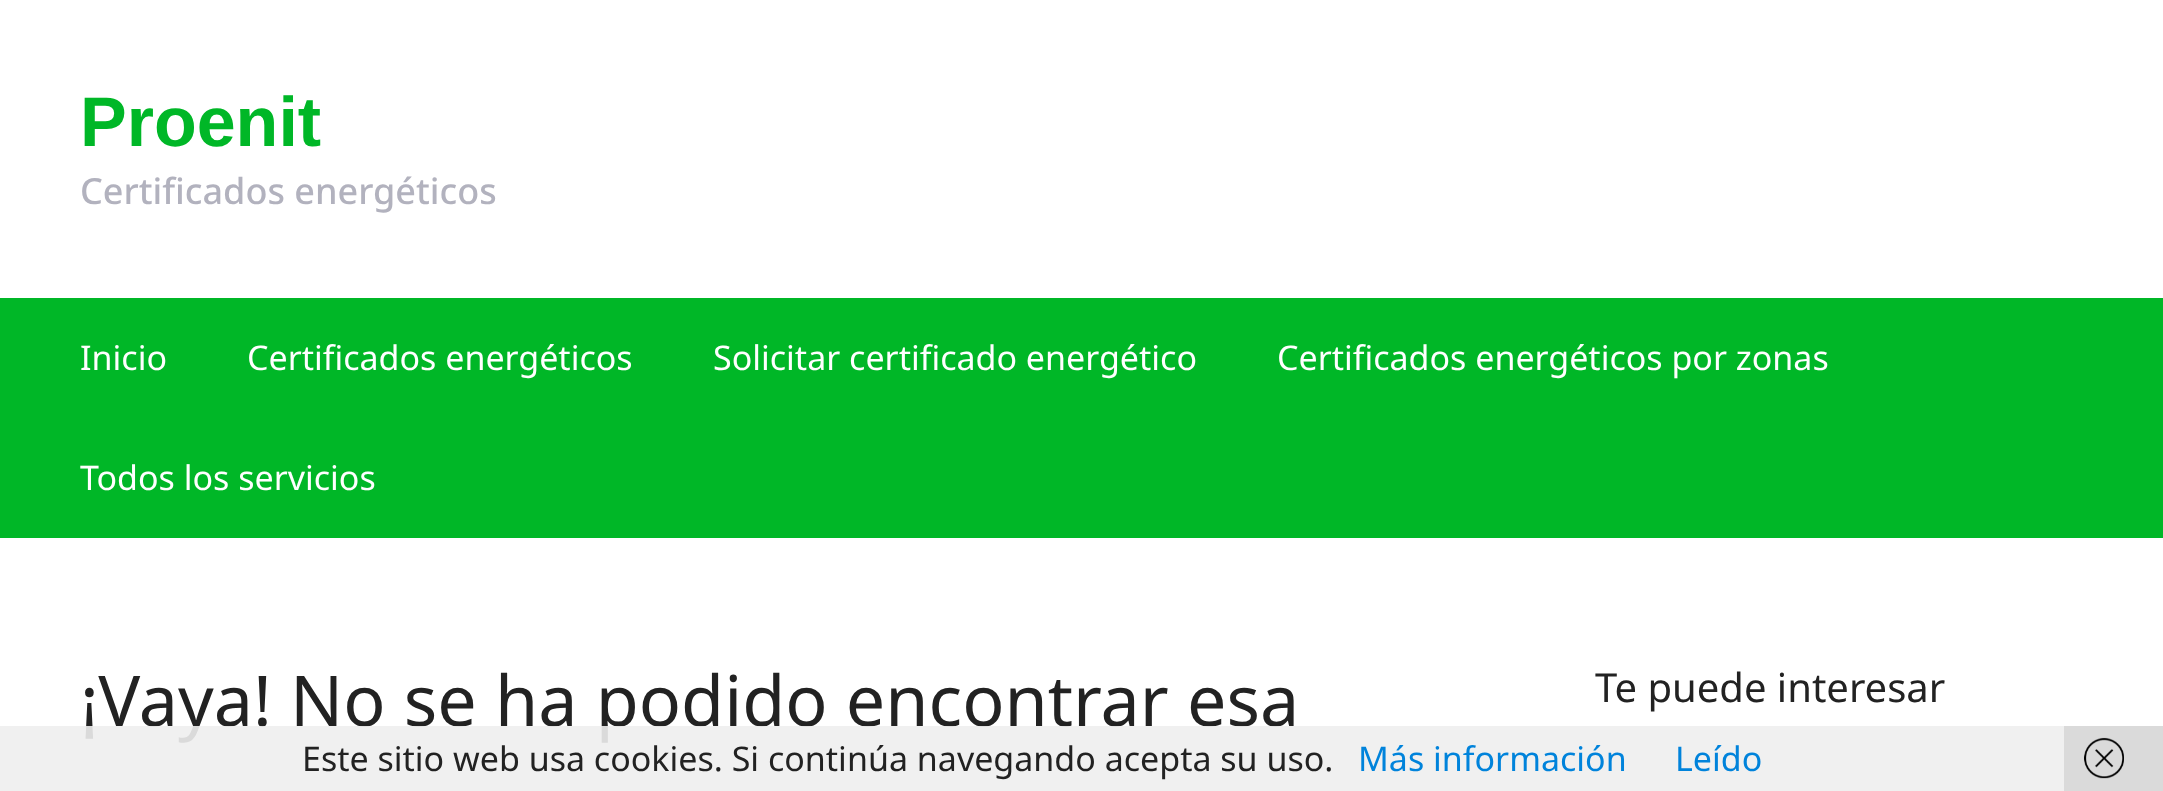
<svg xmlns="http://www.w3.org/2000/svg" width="2163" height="791">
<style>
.a{font:bold 70px Liberation Sans;fill:#00b727}
.b{font:500 36px Noto Sans;fill:#b2b2be}
.c{font:34px Noto Sans;fill:#fff}
.d{font:70px Noto Sans;fill:#222}
.e{font:40px Noto Sans;fill:#222}
.f{font:34px Noto Sans;fill:#222}
.g{font:34px Noto Sans;fill:#0083db}
</style>
<rect width="100%" height="100%" fill="#fff"/>
<path fill="#00b727" d="M0 298h2163v240H0z"/>
<path fill="#dadada" d="M2064 726h99v65H2064z"/>
<image href="1.png" x="2084" y="737" width="40" height="42"/>
<text class="a" x="80" y="146">Proenit</text>
<text class="b" x="80" y="204">Certificados energéticos</text>
<text class="c" x="80" y="370">Inicio</text>
<text class="c" x="247" y="370">Certificados energéticos</text>
<text class="c" x="713" y="370">Solicitar certificado energético</text>
<text class="c" x="1277" y="370">Certificados energéticos por zonas</text>
<text class="c" x="80" y="490">Todos los servicios</text>
<text class="d" x="80" y="726">¡Vaya! No se ha podido encontrar esa</text>
<text class="e" x="1595" y="702">Te puede interesar</text>
<path fill="#eeeeeee6" d="M0 726h2064v65H0z"/>
<text class="f" x="302" y="771">Este sitio web usa cookies. Si continúa navegando acepta su uso.</text>
<text class="g" x="1358" y="771">Más información</text>
<text class="g" x="1675" y="771">Leído</text>
</svg>
